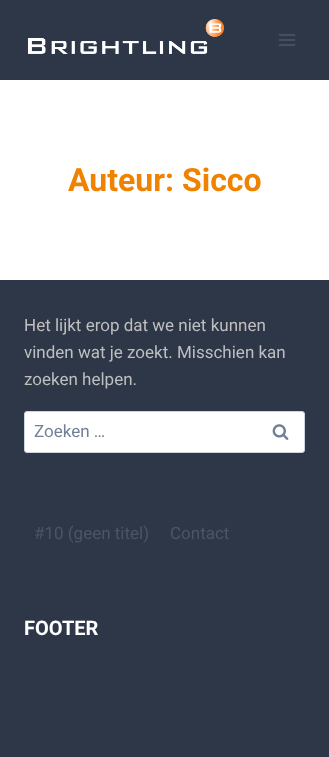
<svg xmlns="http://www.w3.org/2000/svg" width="329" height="757">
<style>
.a{font:bold 32px Roboto;fill:#f08201}
.b{font:17px Roboto;fill:#bfbfbf}
.c{font:17px Roboto;fill:#718096}
.d{font:17px Roboto;fill:#4a5568}
.e{font:bold 20px Roboto;fill:#fff}
</style>
<rect width="100%" height="100%" fill="#2d3748"/>
<image href="1.png" x="27" y="19" width="197" height="35"/>
<image href="2.png" x="278" y="34" width="18" height="12"/>
<path fill="#fff" d="M0 80h329v200H0z"/>
<rect fill="#fff" stroke="#cbd5e0" x="24.5" y="411.5" width="280" height="41" rx="2.5"/>
<image href="3.png" x="272" y="424" width="17" height="16"/>
<text class="a" x="68" y="191">Auteur: Sicco</text>
<text class="b" x="24" y="331">Het lijkt erop dat we niet kunnen</text>
<text class="b" x="24" y="358">vinden wat je zoekt. Misschien kan</text>
<text class="b" x="24" y="385">zoeken helpen.</text>
<text class="c" x="34" y="437">Zoeken …</text>
<text class="d" x="34" y="539">#10 (geen titel)</text>
<text class="d" x="170" y="539">Contact</text>
<text class="e" x="24" y="635">FOOTER</text>
</svg>
